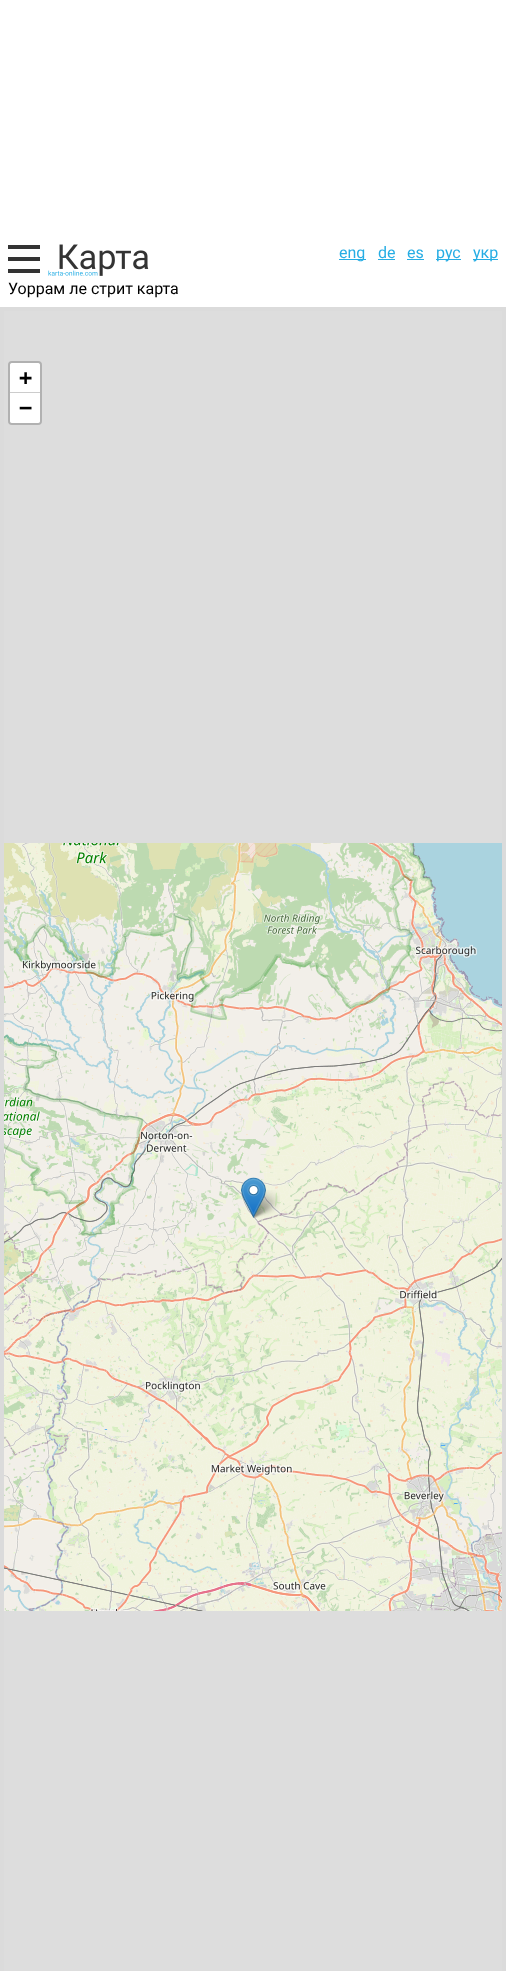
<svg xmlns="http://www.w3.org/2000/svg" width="506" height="1971">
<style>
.a{font:16px Roboto;fill:#26ade4}
.b{font:16px Roboto;fill:#000}
.c{font:bold 22px DejaVu Sans Mono;fill:#000}
</style>
<rect width="100%" height="100%" fill="#fff"/>
<path fill="#333" d="M8 245h32v4H8z"/>
<path fill="#333" d="M8 257h32v4H8z"/>
<path fill="#333" d="M8 269h32v4H8z"/>
<image href="1.png" x="48" y="244" width="101" height="32"/>
<path fill="#26ade4" d="M339 259h27v1H339z"/>
<path fill="#26ade4" d="M378 259h17v1H378z"/>
<path fill="#26ade4" d="M407 259h17v1H407z"/>
<path fill="#26ade4" d="M436 259h25v1H436z"/>
<path fill="#26ade4" d="M473 259h25v1H473z"/>
<path fill="#ddd" stroke="#dbdbdb" stroke-width="4" d="M2 309h502v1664H2z"/>
<rect fill="none" stroke="#b1b1b1" stroke-width="2" x="9" y="362" width="32" height="62" rx="3"/>
<path fill="#fff" d="M12 363h26c1 0 2 1 2 2v27h-30v-27c0-1 1-2 2-2z"/>
<path fill="#ccc" d="M10 392h30v1H10z"/>
<path fill="#fff" d="M10 393h30v28c0 1-1 2-2 2h-26c-1 0-2-1-2-2z"/>
<image href="2.png" x="4" y="843" width="222" height="256"/>
<image href="3.png" x="226" y="843" width="256" height="256"/>
<image href="4.png" x="482" y="843" width="20" height="256"/>
<image href="5.png" x="4" y="1099" width="222" height="256"/>
<image href="6.png" x="226" y="1099" width="256" height="256"/>
<image href="7.png" x="482" y="1099" width="20" height="256"/>
<image href="8.png" x="4" y="1355" width="222" height="256"/>
<image href="9.png" x="226" y="1355" width="256" height="256"/>
<image href="10.png" x="482" y="1355" width="20" height="256"/>
<image href="12.png" x="251" y="1190" width="29" height="28"/>
<image href="11.png" x="241" y="1177" width="25" height="41"/>
<text class="a" x="339" y="258">eng</text>
<text class="a" x="378" y="258">de</text>
<text class="a" x="407" y="258">es</text>
<text class="a" x="436" y="258">рус</text>
<text class="a" x="473" y="258">укр</text>
<text class="b" x="8" y="294">Уоррам ле стрит карта</text>
<text class="c" x="19" y="385">+</text>
<text class="c" x="19" y="415">−</text>
</svg>
